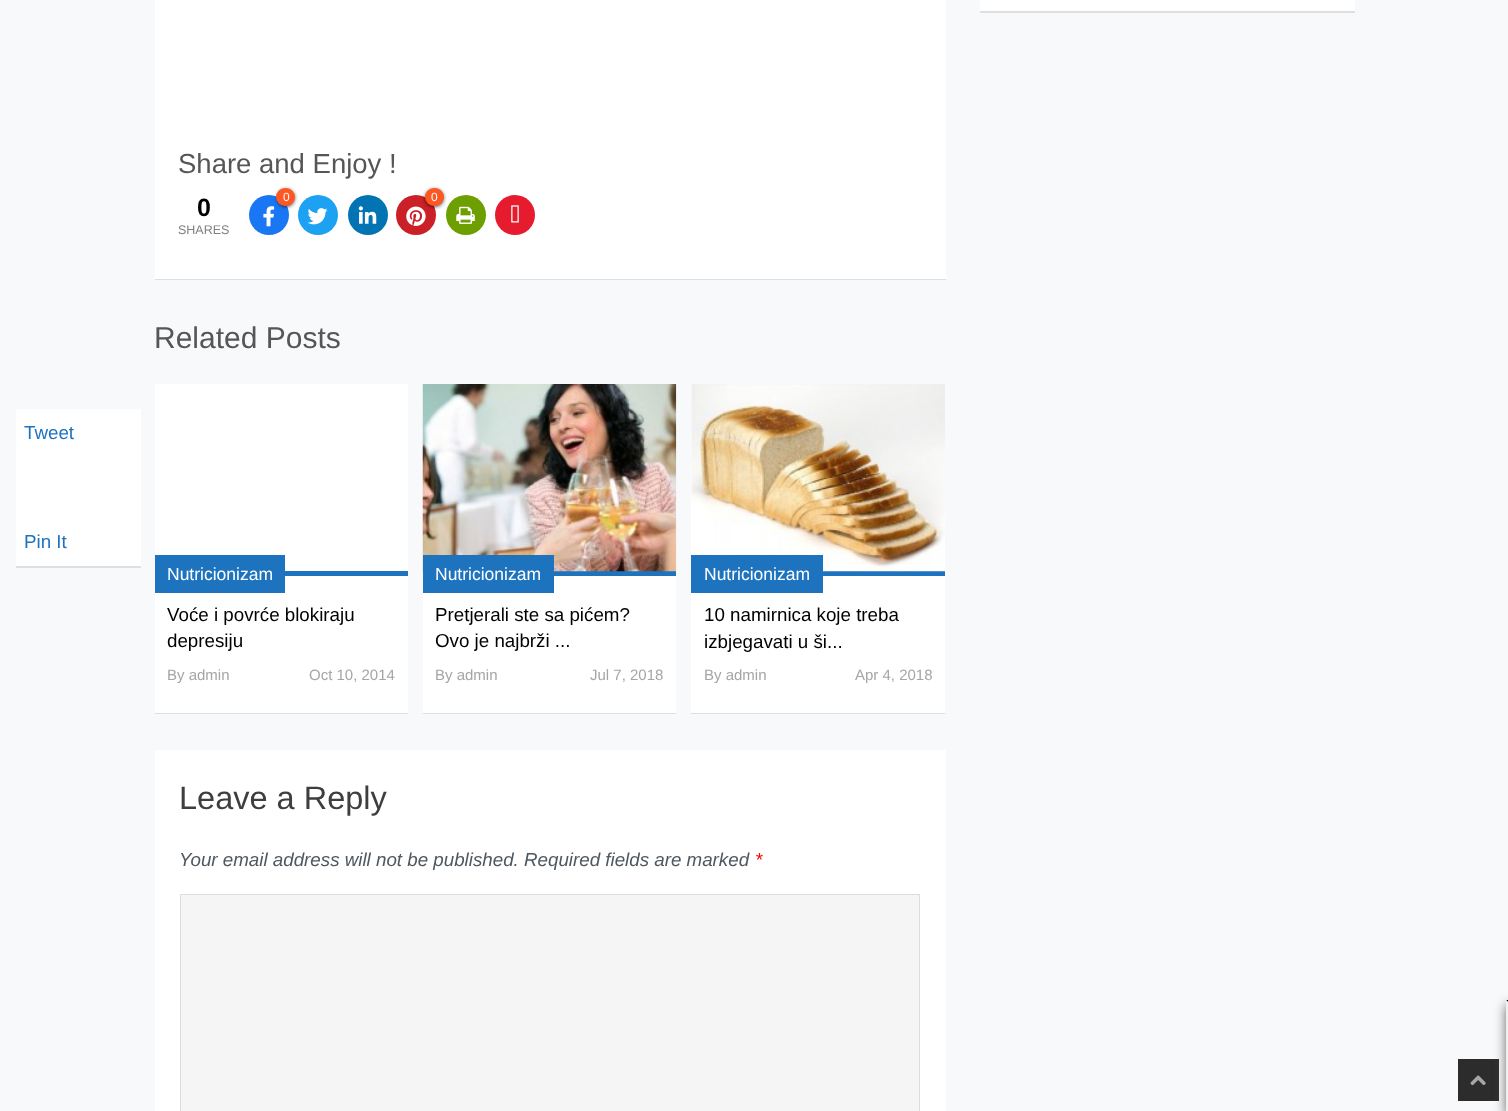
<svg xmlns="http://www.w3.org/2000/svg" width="1508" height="1111">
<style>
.a{font:27.5px Liberation Sans;fill:#565656}
.b{font:12px Liberation Sans;fill:#fff}
.c{font:bold 25px Liberation Sans;fill:#000}
.d{font:12.5px Liberation Sans;fill:#808080}
.e{font:18.75px Liberation Sans;fill:#1e73be}
.f{font:30px Liberation Sans;fill:#565656}
.g{font:17.5px Liberation Sans;fill:#fff}
.h{font:18.75px Liberation Sans;fill:#000}
.i{font:15px Liberation Sans;fill:#a5a5a5}
.j{font:32.5px Liberation Sans;fill:#3e3e3e}
.k{font:italic 18.75px Liberation Sans;fill:#4e5860}
.l{font:italic 18.75px Liberation Sans;fill:#f00}
</style>
<rect width="100%" height="100%" fill="#f8f9fa"/>
<path fill="#0000001a" filter="blur(0.5px)" d="M980 -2h375v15H980z"/>
<path fill="#fff" d="M980 0h375v11H980z"/>
<path fill="#0000001a" filter="blur(0.5px)" d="M155 -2h791v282H155z"/>
<path fill="#fff" d="M155 0h791v279H155z"/>
<circle fill="#1977f3" cx="269" cy="215" r="20"/>
<image href="1.png" x="263" y="206" width="12" height="21"/>
<circle fill="#1da1f2" cx="318" cy="215" r="20"/>
<rect fill="#000" filter="blur(2px)" x="278" y="190" width="16" height="16" rx="8"/>
<rect fill="#ff5722" x="276" y="188" width="19" height="18" rx="9"/>
<image href="2.png" x="307" y="208" width="21" height="17"/>
<circle fill="#0274b3" cx="368" cy="215" r="20"/>
<image href="3.png" x="358" y="206" width="19" height="18"/>
<circle fill="#cb2027" cx="416" cy="215" r="20"/>
<image href="4.png" x="406" y="206" width="20" height="20"/>
<circle fill="#6d9f00" cx="466" cy="215" r="20"/>
<rect fill="#000" filter="blur(2px)" x="426" y="190" width="17" height="16" rx="8"/>
<rect fill="#ff5722" x="425" y="188" width="19" height="18" rx="9"/>
<image href="5.png" x="456" y="206" width="19" height="18"/>
<circle fill="#e61b2e" cx="515" cy="215" r="20"/>
<image href="6.png" x="511" y="205" width="8" height="18"/>
<path fill="#0000001a" filter="blur(0.5px)" d="M16 410h125v158H16z"/>
<path fill="#fff" d="M16 409h125v157H16z"/>
<path fill="#0000001a" filter="blur(0.5px)" d="M155 385h253v329H155z"/>
<path fill="#fff" d="M155 384h253v329H155z"/>
<path fill="#1e73be" d="M155 555h130v38H155z"/>
<path fill="#1e73be" d="M285 571h123v5H285z"/>
<path fill="#0000001a" filter="blur(0.5px)" d="M423 385h253v329H423z"/>
<path fill="#fff" d="M423 576h253v137H423z"/>
<path fill="#1e73be" d="M554 571h122v5H554z"/>
<image href="7.png" x="422" y="384" width="255" height="188"/>
<path fill="#1e73be" d="M423 555h131v38H423z"/>
<path fill="#0000001a" filter="blur(0.5px)" d="M691 385h254v329H691z"/>
<path fill="#fff" d="M691 384h254v329H691z"/>
<path fill="#1e73be" d="M823 571h122v5H823z"/>
<image href="8.png" x="691" y="384" width="254" height="188"/>
<path fill="#1e73be" d="M691 555h132v38H691z"/>
<path fill="#fff" d="M155 750h791v361H155z"/>
<path fill="#f5f5f5" stroke="#dddcdc" d="M180.5 894.5h739v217H180.5z"/>
<path fill="#2c2c2c" d="M1458 1059h41v42H1458z"/>
<path fill="#666" filter="blur(6px)" d="M1506 1005h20v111H1506z"/>
<path fill="#000" d="M1506 1000h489v2h-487z"/>
<path fill="#f0f0f0" d="M1506 1111v-111l2 2v109z"/>
<image href="9.png" x="1470" y="1075" width="16" height="11"/>
<text class="a" x="178" y="173">Share and Enjoy !</text>
<text class="b" x="283" y="201">0</text>
<text class="b" x="431" y="201">0</text>
<text class="c" x="197" y="216">0</text>
<text class="d" x="178" y="234">SHARES</text>
<text class="e" x="24" y="439">Tweet</text>
<text class="e" x="24" y="548">Pin It</text>
<text class="f" x="154" y="348">Related Posts</text>
<text class="g" x="167" y="580">Nutricionizam</text>
<text class="h" x="167" y="621">Voće i povrće blokiraju</text>
<text class="h" x="167" y="647">depresiju</text>
<text class="i" x="167" y="680">By admin</text>
<text class="i" x="309" y="680">Oct 10, 2014</text>
<text class="g" x="435" y="580">Nutricionizam</text>
<text class="h" x="435" y="621">Pretjerali ste sa pićem?</text>
<text class="h" x="435" y="647">Ovo je najbrži ...</text>
<text class="i" x="435" y="680">By admin</text>
<text class="i" x="590" y="680">Jul 7, 2018</text>
<text class="g" x="704" y="580">Nutricionizam</text>
<text class="h" x="704" y="621">10 namirnica koje treba</text>
<text class="h" x="704" y="648">izbjegavati u ši...</text>
<text class="i" x="704" y="680">By admin</text>
<text class="i" x="855" y="680">Apr 4, 2018</text>
<text class="j" x="179" y="809">Leave a Reply</text>
<text class="k" x="179" y="866">Your email address will not be published. Required fields are marked</text>
<text class="l" x="755" y="866">*</text>
</svg>
